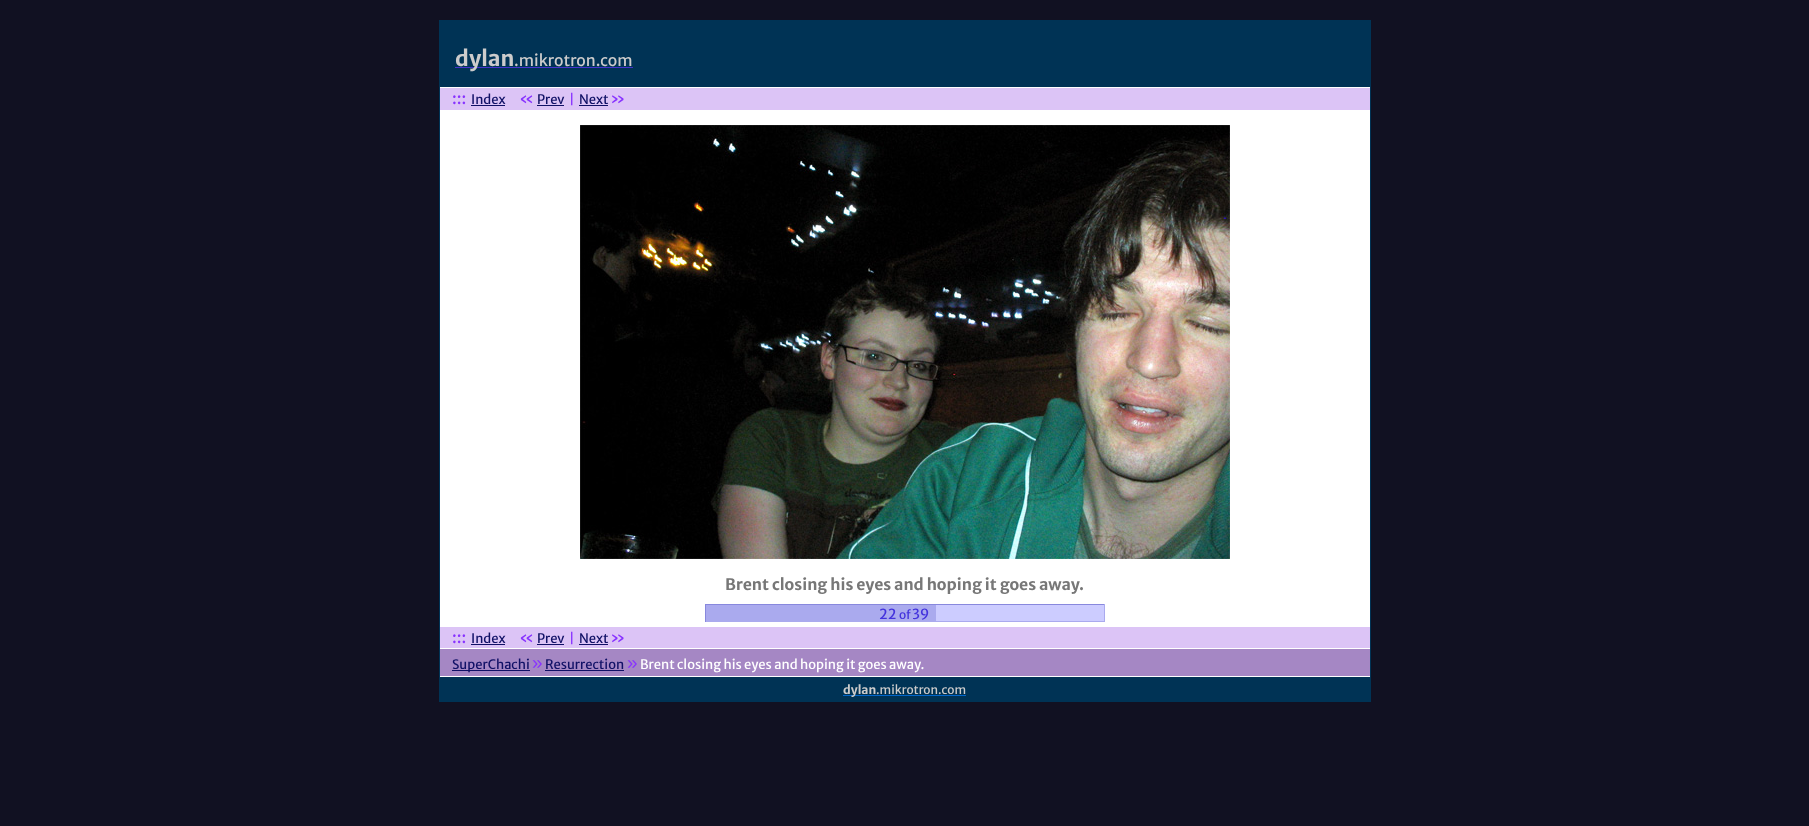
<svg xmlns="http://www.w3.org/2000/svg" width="1809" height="826">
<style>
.a{font:bold 21.5px Merriweather Sans;fill:#ccc}
.b{font:15.8px Merriweather Sans;fill:#ccc}
.c{font:16px Merriweather Sans;fill:#83f}
.d{font:13px Merriweather Sans;fill:#116}
.e{font:13px Merriweather Sans;fill:#83f}
.f{font:bold 15.8px Merriweather Sans;fill:#777}
.g{font:14px Merriweather Sans;fill:#43d}
.h{font:12px Merriweather Sans;fill:#43d}
.i{font:19px Liberation Sans;fill:#83f}
.j{font:13px Merriweather Sans;fill:#fff}
.k{font:bold 12px Merriweather Sans;fill:#ccc}
.l{font:12px Merriweather Sans;fill:#ccc}
</style>
<rect width="100%" height="100%" fill="#112"/>
<path fill="#fff" d="M440 87h930v590H440z"/>
<path fill="#035" d="M440 20h930v67H440z"/>
<path fill="#035" d="M1370 20h1v682H1370z"/>
<path fill="#035" d="M439 20h1v682H439z"/>
<path fill="#43c" d="M455 67h178v1H455z"/>
<path fill="#dcc4f6" d="M440 88h930v22H440z"/>
<path fill="#116" d="M471 105h34v1H471z"/>
<path fill="#116" d="M537 105h27v1H537z"/>
<path fill="#116" d="M579 105h29v1H579z"/>
<image href="1.png" x="580" y="125" width="650" height="434"/>
<path fill="#ccf" d="M936 605h168v16H936z"/>
<path fill="#88d" d="M705 604h400v1H705z"/>
<path fill="#aae" d="M1104 604h1v18H1104z"/>
<path fill="#aae" d="M705 621h400v1H705z"/>
<path fill="#88d" d="M705 604h1v18H705z"/>
<path fill="#aae" d="M706 605h230v16H706z"/>
<path fill="#dcc4f6" d="M440 627h930v21H440z"/>
<path fill="#116" d="M471 644h34v1H471z"/>
<path fill="#116" d="M537 644h27v1H537z"/>
<path fill="#116" d="M579 644h29v1H579z"/>
<path fill="#a587c4" d="M440 649h930v27H440z"/>
<path fill="#116" d="M452 670h78v1H452z"/>
<path fill="#116" d="M545 670h79v1H545z"/>
<path fill="#035" d="M440 677h930v25H440z"/>
<path fill="#06c" d="M843 695h123v1H843z"/>
<text class="a" x="455" y="66">dylan</text>
<text class="b" x="514" y="66">.mikrotron.com</text>
<text class="c" x="452" y="104">:::</text>
<text class="d" x="471" y="104">Index</text>
<text class="c" x="519" y="104">«</text>
<text class="d" x="537" y="104">Prev</text>
<text class="e" x="569" y="104">|</text>
<text class="d" x="579" y="104">Next</text>
<text class="c" x="610" y="104">»</text>
<text class="f" x="725" y="590">Brent closing his eyes and hoping it goes away.</text>
<text class="g" x="879" y="619">22</text>
<text class="h" x="899" y="619">of</text>
<text class="g" x="912" y="619">39</text>
<text class="c" x="452" y="643">:::</text>
<text class="d" x="471" y="643">Index</text>
<text class="c" x="519" y="643">«</text>
<text class="d" x="537" y="643">Prev</text>
<text class="e" x="569" y="643">|</text>
<text class="d" x="579" y="643">Next</text>
<text class="c" x="610" y="643">»</text>
<text class="d" x="452" y="669">SuperChachi</text>
<text class="i" x="532" y="669">»</text>
<text class="d" x="545" y="669">Resurrection</text>
<text class="i" x="627" y="669">»</text>
<text class="j" x="640" y="669">Brent closing his eyes and hoping it goes away.</text>
<text class="k" x="843" y="694">dylan</text>
<text class="l" x="876" y="694">.mikrotron.com</text>
</svg>
